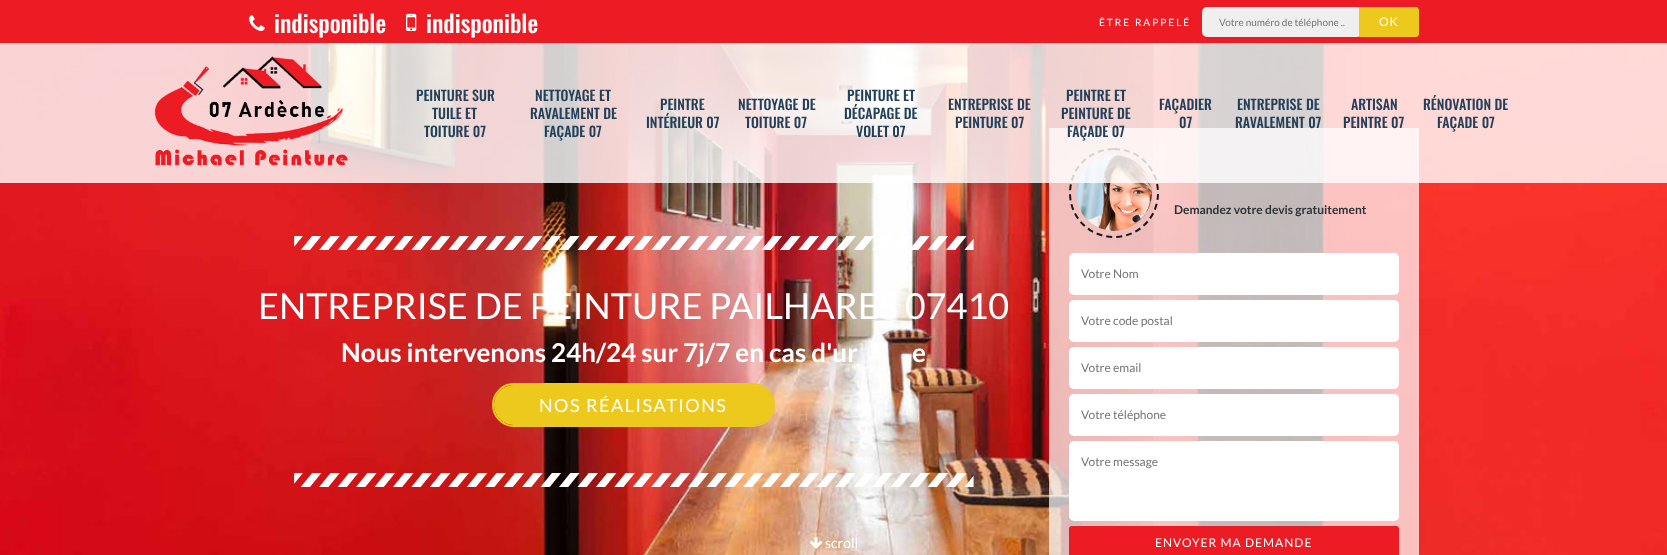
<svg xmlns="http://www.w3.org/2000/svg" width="1667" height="555">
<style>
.a{font:500 24px Oswald;fill:#fff}
.b{font:10px Lato;letter-spacing:2px;fill:#fff}
.c{font:10px Lato;fill:#757575}
.d{font:12px Lato;letter-spacing:1px;fill:#fff}
.e{font:500 14px Oswald;fill:#224059}
.f{font:36px Lato;fill:#fff}
.g{font:bold 26px Lato;fill:#fff}
.h{font:18px Lato;letter-spacing:1.5px;fill:#fff}
.i{font:bold 12px Lato;fill:#2c3339}
.j{font:12px Lato;fill:#757575}
.k{font:14px Lato;fill:#fff}
</style>
<rect width="100%" height="100%" fill="#fff"/>
<path fill="#ed1b24" d="M0 0h1667v43H0z"/>
<image href="1.png" x="249" y="15" width="16" height="16"/>
<image href="2.png" x="406" y="13" width="11" height="18"/>
<rect fill="#efefef" x="1202" y="7" width="160" height="30" rx="5"/>
<path fill="#ecc91c" d="M1359 7h57c1.5 0 3 1.5 3 3v24c0 1.5-1.5 3-3 3h-57z"/>
<image href="4.png" x="0" y="43" width="1667" height="512"/>
<path fill="#ffffffb5" d="M1049 128h370v427H1049z"/>
<path fill="none" stroke="#181918" stroke-width="2" stroke-dasharray="6 4" d="M1114 149c24.5 0 44 19.5 44 44c0 24.5-19.5 44-44 44c-24.5 0-44-19.5-44-44c0-24.5 19.5-44 44-44z"/>
<image href="7.png" x="1076" y="155" width="76" height="76"/>
<path fill="#ffffffcf" d="M0 43h1667v140H0z"/>
<image href="3.png" x="154" y="56" width="194" height="110"/>
<image href="5.png" x="294" y="236" width="680" height="14"/>
<rect fill="none" stroke="#ecc91c" stroke-width="2" x="493" y="384" width="281" height="42" rx="21"/>
<rect fill="#ecc91c" x="494" y="385" width="279" height="40" rx="20"/>
<image href="6.png" x="294" y="473" width="680" height="14"/>
<rect fill="#fff" x="1069" y="253" width="330" height="42" rx="5"/>
<rect fill="#fff" x="1069" y="300" width="330" height="42" rx="5"/>
<rect fill="#fff" x="1069" y="347" width="330" height="42" rx="5"/>
<rect fill="#fff" x="1069" y="394" width="330" height="42" rx="5"/>
<rect fill="#fff" x="1069" y="441" width="330" height="80" rx="5"/>
<rect fill="#ed1b24" x="1069" y="526" width="330" height="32" rx="3"/>
<image href="8.png" x="810" y="537" width="13" height="12"/>
<text class="a" x="274" y="33">indisponible</text>
<text class="a" x="426" y="33">indisponible</text>
<text class="b" x="1099" y="26">ÊTRE RAPPELÉ</text>
<text class="c" x="1219" y="26">Votre numéro de téléphone ..</text>
<text class="d" x="1379" y="26">OK</text>
<text class="e" x="416" y="101">PEINTURE SUR</text>
<text class="e" x="432" y="119">TUILE ET</text>
<text class="e" x="424" y="137">TOITURE 07</text>
<text class="e" x="535" y="101">NETTOYAGE ET</text>
<text class="e" x="530" y="119">RAVALEMENT DE</text>
<text class="e" x="544" y="137">FAÇADE 07</text>
<text class="e" x="660" y="110">PEINTRE</text>
<text class="e" x="646" y="128">INTÉRIEUR 07</text>
<text class="e" x="738" y="110">NETTOYAGE DE</text>
<text class="e" x="745" y="128">TOITURE 07</text>
<text class="e" x="847" y="101">PEINTURE ET</text>
<text class="e" x="844" y="119">DÉCAPAGE DE</text>
<text class="e" x="856" y="137">VOLET 07</text>
<text class="e" x="948" y="110">ENTREPRISE DE</text>
<text class="e" x="955" y="128">PEINTURE 07</text>
<text class="e" x="1066" y="101">PEINTRE ET</text>
<text class="e" x="1061" y="119">PEINTURE DE</text>
<text class="e" x="1067" y="137">FAÇADE 07</text>
<text class="e" x="1159" y="110">FAÇADIER</text>
<text class="e" x="1179" y="128">07</text>
<text class="e" x="1237" y="110">ENTREPRISE DE</text>
<text class="e" x="1235" y="128">RAVALEMENT 07</text>
<text class="e" x="1351" y="110">ARTISAN</text>
<text class="e" x="1343" y="128">PEINTRE 07</text>
<text class="e" x="1423" y="110">RÉNOVATION DE</text>
<text class="e" x="1437" y="128">FAÇADE 07</text>
<text class="f" x="258" y="319">ENTREPRISE DE PEINTURE PAILHARES 07410</text>
<text class="g" x="341" y="362">Nous intervenons 24h/24 sur 7j/7 en cas d'ur</text>
<text class="g" x="912" y="362">e</text>
<text class="h" x="539" y="412">NOS RÉALISATIONS</text>
<text class="i" x="1174" y="214">Demandez votre devis gratuitement</text>
<text class="j" x="1081" y="278">Votre Nom</text>
<text class="j" x="1081" y="325">Votre code postal</text>
<text class="j" x="1081" y="372">Votre email</text>
<text class="j" x="1081" y="419">Votre téléphone</text>
<text class="j" x="1081" y="466">Votre message</text>
<text class="d" x="1155" y="547">ENVOYER MA DEMANDE</text>
<text class="k" x="825" y="548">scroll</text>
</svg>
